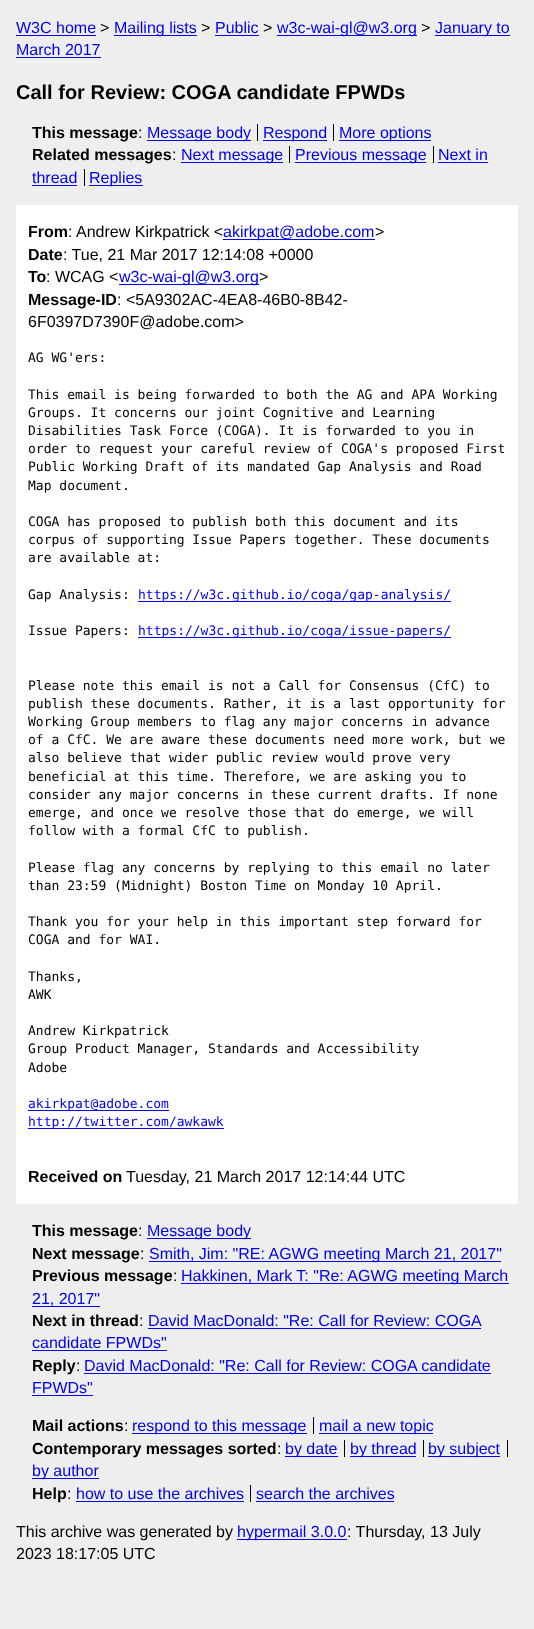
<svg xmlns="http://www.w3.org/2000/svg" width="534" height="1629">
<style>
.a{font:16px Liberation Sans;fill:#00e}
.b{font:16px Liberation Sans;fill:#000}
.c{font:bold 20px Liberation Sans;fill:#000}
.d{font:bold 16px Liberation Sans;fill:#000}
.e{font:13px DejaVu Sans Mono;fill:#000}
.f{font:13px DejaVu Sans Mono;fill:#00e}
</style>
<rect width="100%" height="100%" fill="#eee"/>
<path fill="#00e" d="M16 35h80v1H16z"/>
<path fill="#00e" d="M114 35h83v1H114z"/>
<path fill="#00e" d="M215 35h44v1H215z"/>
<path fill="#00e" d="M277 35h140v1H277z"/>
<path fill="#00e" d="M435 35h75v1H435z"/>
<path fill="#00e" d="M16 57h85v1H16z"/>
<path fill="#00e" d="M147 140h104v1H147z"/>
<path fill="#000" d="M257 124h1v17H257z"/>
<path fill="#00e" d="M263 140h64v1H263z"/>
<path fill="#000" d="M333 124h1v17H333z"/>
<path fill="#00e" d="M339 140h92v1H339z"/>
<path fill="#00e" d="M181 162h102v1H181z"/>
<path fill="#000" d="M289 146h1v17H289z"/>
<path fill="#00e" d="M295 162h131v1H295z"/>
<path fill="#000" d="M433 146h1v17H433z"/>
<path fill="#00e" d="M438 162h50v1H438z"/>
<path fill="#000" d="M84 169h1v17H84z"/>
<path fill="#00e" d="M32 185h45v1H32z"/>
<path fill="#00e" d="M89 185h54v1H89z"/>
<path fill="#fff" d="M16 205h502v999H16z"/>
<path fill="#00e" d="M223 239h152v1H223z"/>
<path fill="#00e" d="M119 284h140v1H119z"/>
<path fill="#00e" d="M138 601h313v1H138z"/>
<path fill="#00e" d="M138 637h313v1H138z"/>
<path fill="#00e" d="M28 1110h141v1H28z"/>
<path fill="#00e" d="M28 1128h196v1H28z"/>
<path fill="#00e" d="M147 1238h104v1H147z"/>
<path fill="#00e" d="M149 1261h352v1H149z"/>
<path fill="#00e" d="M181 1283h328v1H181z"/>
<path fill="#00e" d="M32 1306h68v1H32z"/>
<path fill="#00e" d="M148 1328h333v1H148z"/>
<path fill="#00e" d="M32 1350h135v1H32z"/>
<path fill="#00e" d="M84 1373h407v1H84z"/>
<path fill="#00e" d="M32 1395h61v1H32z"/>
<path fill="#00e" d="M132 1433h175v1H132z"/>
<path fill="#000" d="M313 1417h1v17H313z"/>
<path fill="#00e" d="M319 1433h114v1H319z"/>
<path fill="#00e" d="M285 1456h53v1H285z"/>
<path fill="#000" d="M344 1440h1v17H344z"/>
<path fill="#00e" d="M350 1456h66v1H350z"/>
<path fill="#000" d="M423 1440h1v17H423z"/>
<path fill="#000" d="M507 1440h1v17H507z"/>
<path fill="#00e" d="M428 1456h72v1H428z"/>
<path fill="#00e" d="M32 1478h67v1H32z"/>
<path fill="#00e" d="M76 1501h168v1H76z"/>
<path fill="#000" d="M250 1485h1v17H250z"/>
<path fill="#00e" d="M256 1501h138v1H256z"/>
<path fill="#00e" d="M237 1539h110v1H237z"/>
<text class="a" x="16" y="33">W3C home</text>
<text class="b" x="100" y="33">&gt;</text>
<text class="a" x="114" y="33">Mailing lists</text>
<text class="b" x="201" y="33">&gt;</text>
<text class="a" x="215" y="33">Public</text>
<text class="b" x="263" y="33">&gt;</text>
<text class="a" x="277" y="33">w3c-wai-gl@w3.org</text>
<text class="b" x="421" y="33">&gt;</text>
<text class="a" x="435" y="33">January to</text>
<text class="a" x="16" y="55">March 2017</text>
<text class="c" x="16" y="99">Call for Review: COGA candidate FPWDs</text>
<text class="d" x="32" y="138">This message</text>
<text class="b" x="138" y="138">:</text>
<text class="a" x="147" y="138">Message body</text>
<text class="a" x="263" y="138">Respond</text>
<text class="a" x="339" y="138">More options</text>
<text class="d" x="32" y="160">Related messages</text>
<text class="b" x="172" y="160">:</text>
<text class="a" x="181" y="160">Next message</text>
<text class="a" x="295" y="160">Previous message</text>
<text class="a" x="438" y="160">Next in</text>
<text class="a" x="32" y="183">thread</text>
<text class="a" x="89" y="183">Replies</text>
<text class="d" x="28" y="237">From</text>
<text class="b" x="68" y="237">: Andrew Kirkpatrick &lt;</text>
<text class="a" x="223" y="237">akirkpat@adobe.com</text>
<text class="b" x="375" y="237">&gt;</text>
<text class="d" x="28" y="260">Date</text>
<text class="b" x="63" y="260">: Tue, 21 Mar 2017 12:14:08 +0000</text>
<text class="d" x="28" y="282">To</text>
<text class="b" x="46" y="282">: WCAG &lt;</text>
<text class="a" x="119" y="282">w3c-wai-gl@w3.org</text>
<text class="b" x="259" y="282">&gt;</text>
<text class="d" x="28" y="305">Message-ID</text>
<text class="b" x="117" y="305">: &lt;5A9302AC-4EA8-46B0-8B42-</text>
<text class="b" x="28" y="327">6F0397D7390F@adobe.com&gt;</text>
<text class="e" x="28" y="362">AG WG'ers:</text>
<text class="e" x="28" y="399">This email is being forwarded to both the AG and APA Working</text>
<text class="e" x="28" y="417">Groups. It concerns our joint Cognitive and Learning</text>
<text class="e" x="28" y="435">Disabilities Task Force (COGA). It is forwarded to you in</text>
<text class="e" x="28" y="453">order to request your careful review of COGA's proposed First</text>
<text class="e" x="28" y="471">Public Working Draft of its mandated Gap Analysis and Road</text>
<text class="e" x="28" y="490">Map document.</text>
<text class="e" x="28" y="526">COGA has proposed to publish both this document and its</text>
<text class="e" x="28" y="544">corpus of supporting Issue Papers together. These documents</text>
<text class="e" x="28" y="562">are available at:</text>
<text class="e" x="28" y="599">Gap Analysis:</text>
<text class="f" x="138" y="599">https://w3c.github.io/coga/gap-analysis/</text>
<text class="e" x="28" y="635">Issue Papers:</text>
<text class="f" x="138" y="635">https://w3c.github.io/coga/issue-papers/</text>
<text class="e" x="28" y="690">Please note this email is not a Call for Consensus (CfC) to</text>
<text class="e" x="28" y="708">publish these documents. Rather, it is a last opportunity for</text>
<text class="e" x="28" y="726">Working Group members to flag any major concerns in advance</text>
<text class="e" x="28" y="744">of a CfC. We are aware these documents need more work, but we</text>
<text class="e" x="28" y="762">also believe that wider public review would prove very</text>
<text class="e" x="28" y="781">beneficial at this time. Therefore, we are asking you to</text>
<text class="e" x="28" y="799">consider any major concerns in these current drafts. If none</text>
<text class="e" x="28" y="817">emerge, and once we resolve those that do emerge, we will</text>
<text class="e" x="28" y="835">follow with a formal CfC to publish.</text>
<text class="e" x="28" y="872">Please flag any concerns by replying to this email no later</text>
<text class="e" x="28" y="890">than 23:59 (Midnight) Boston Time on Monday 10 April.</text>
<text class="e" x="28" y="926">Thank you for your help in this important step forward for</text>
<text class="e" x="28" y="944">COGA and for WAI.</text>
<text class="e" x="28" y="981">Thanks,</text>
<text class="e" x="28" y="999">AWK</text>
<text class="e" x="28" y="1035">Andrew Kirkpatrick</text>
<text class="e" x="28" y="1053">Group Product Manager, Standards and Accessibility</text>
<text class="e" x="28" y="1072">Adobe</text>
<text class="f" x="28" y="1108">akirkpat@adobe.com</text>
<text class="f" x="28" y="1126">http://twitter.com/awkawk</text>
<text class="d" x="28" y="1182">Received on</text>
<text class="b" x="126" y="1182">Tuesday, 21 March 2017 12:14:44 UTC</text>
<text class="d" x="32" y="1236">This message</text>
<text class="b" x="138" y="1236">:</text>
<text class="a" x="147" y="1236">Message body</text>
<text class="d" x="32" y="1259">Next message</text>
<text class="b" x="140" y="1259">:</text>
<text class="a" x="149" y="1259">Smith, Jim: "RE: AGWG meeting March 21, 2017"</text>
<text class="d" x="32" y="1281">Previous message</text>
<text class="b" x="173" y="1281">:</text>
<text class="a" x="181" y="1281">Hakkinen, Mark T: "Re: AGWG meeting March</text>
<text class="a" x="32" y="1304">21, 2017"</text>
<text class="d" x="32" y="1326">Next in thread</text>
<text class="b" x="139" y="1326">:</text>
<text class="a" x="148" y="1326">David MacDonald: "Re: Call for Review: COGA</text>
<text class="a" x="32" y="1348">candidate FPWDs"</text>
<text class="d" x="32" y="1371">Reply</text>
<text class="b" x="76" y="1371">:</text>
<text class="a" x="84" y="1371">David MacDonald: "Re: Call for Review: COGA candidate</text>
<text class="a" x="32" y="1393">FPWDs"</text>
<text class="d" x="32" y="1431">Mail actions</text>
<text class="b" x="124" y="1431">:</text>
<text class="a" x="132" y="1431">respond to this message</text>
<text class="a" x="319" y="1431">mail a new topic</text>
<text class="d" x="32" y="1454">Contemporary messages sorted</text>
<text class="b" x="277" y="1454">:</text>
<text class="a" x="285" y="1454">by date</text>
<text class="a" x="350" y="1454">by thread</text>
<text class="a" x="428" y="1454">by subject</text>
<text class="a" x="32" y="1476">by author</text>
<text class="d" x="32" y="1499">Help</text>
<text class="b" x="67" y="1499">:</text>
<text class="a" x="76" y="1499">how to use the archives</text>
<text class="a" x="256" y="1499">search the archives</text>
<text class="b" x="16" y="1537">This archive was generated by</text>
<text class="a" x="237" y="1537">hypermail 3.0.0</text>
<text class="b" x="347" y="1537">: Thursday, 13 July</text>
<text class="b" x="16" y="1559">2023 18:17:05 UTC</text>
</svg>
